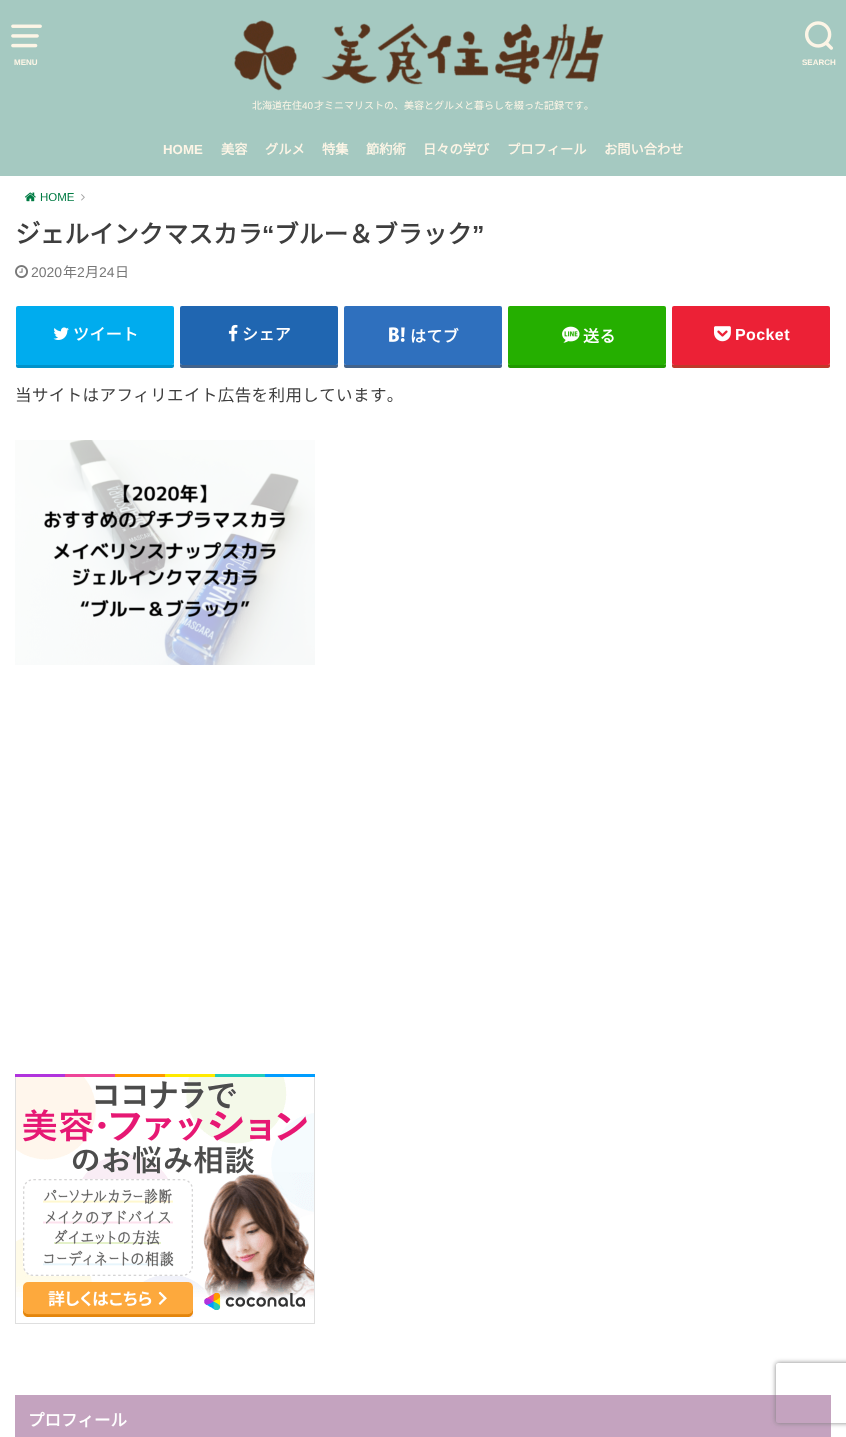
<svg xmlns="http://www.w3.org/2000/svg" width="846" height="1437">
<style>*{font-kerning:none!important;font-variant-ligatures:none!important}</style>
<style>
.a{font:bold 8px Liberation Sans;fill:#fdf5e6}
.b{font:100 10px Noto Sans JP;fill:#fdf5e6}
.c{font:10px Liberation Sans;fill:#fdf5e6}
.d{font:bold 13.25px Liberation Sans;fill:#fdf5e6}
.e{font:bold 13.25px Noto Sans JP;fill:#fdf5e6}
.f{font:11.5px Liberation Sans;fill:#007b43}
.g{font:bold 24.75px Noto Sans JP;fill:#3e3e3e}
.h{font:bold 24.75px Liberation Sans;fill:#3e3e3e}
.i{font:14px Liberation Sans;fill:#787878}
.j{font:100 14px Noto Sans JP;fill:#787878}
.k{font:bold 16px Noto Sans JP;letter-spacing:0.4px;fill:#fff}
.l{font:bold 16px Liberation Sans;letter-spacing:0.4px;fill:#fff}
.m{font:100 16.5px Noto Sans JP;letter-spacing:0.4px;fill:#3e3e3e}
.n{font:bold 16.5px Noto Sans JP;fill:#fff}
</style>
<defs>
<clipPath id="clip1"><path d="M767 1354h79v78h-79zm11 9h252c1 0 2 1 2 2v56c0 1-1 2-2 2h-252c-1 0-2-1-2-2v-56c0-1 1-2 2-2z" clip-rule="evenodd"/></clipPath>
</defs>
<rect width="100%" height="100%" fill="#fff"/>
<path fill="#a5c9c1" d="M0 0h846v176H0z"/>
<image href="1.png" x="11" y="24" width="31" height="24"/>
<image href="2.png" x="805" y="21" width="28" height="29"/>
<image href="3.png" x="234" y="20" width="370" height="71"/>
<image href="4.png" x="24" y="192" width="12" height="10"/>
<image href="5.png" x="81" y="194" width="4" height="7"/>
<image href="6.png" x="15" y="265" width="13" height="14"/>
<path fill="#0092ca" d="M16 363v3c0 1 1 2 2 2h154c1 0 2-1 2-2v-3c0 1-1 2-2 2h-154c-1 0-2-1-2-2z"/>
<rect fill="#00acee" x="16" y="306" width="158" height="59" rx="2"/>
<image href="7.png" x="53" y="327" width="16" height="13"/>
<path fill="#43638b" d="M180 363v3c0 1 1 2 2 2h154c1 0 2-1 2-2v-3c0 1-1 2-2 2h-154c-1 0-2-1-2-2z"/>
<rect fill="#2066b1" x="180" y="306" width="158" height="59" rx="2"/>
<image href="8.png" x="228" y="324" width="10" height="18"/>
<path fill="#43638b" d="M344 363v3c0 1 1 2 2 2h154c1 0 2-1 2-2v-3c0 1-1 2-2 2h-154c-1 0-2-1-2-2z"/>
<rect fill="#2f70be" x="344" y="306" width="158" height="59" rx="2"/>
<image href="9.png" x="389" y="327" width="16" height="15"/>
<path fill="#219900" d="M508 363v3c0 1 1 2 2 2h154c1 0 2-1 2-2v-3c0 1-1 2-2 2h-154c-1 0-2-1-2-2z"/>
<rect fill="#25af00" x="508" y="306" width="158" height="59" rx="2"/>
<image href="10.png" x="562" y="326" width="18" height="17"/>
<path fill="#c0392b" d="M672 363v3c0 1 1 2 2 2h154c1 0 2-1 2-2v-3c0 1-1 2-2 2h-154c-1 0-2-1-2-2z"/>
<rect fill="#ec2136" x="672" y="306" width="158" height="59" rx="2"/>
<image href="11.png" x="714" y="326" width="17" height="16"/>
<image href="12.png" x="15" y="440" width="300" height="225"/>
<image href="13.png" x="15" y="1074" width="300" height="250"/>
<path fill="#c4a3bf" d="M15 1395h816v42H15z"/>
<g clip-path="url(#clip1)">
<rect fill="#808080" filter="blur(2.5px)" x="776" y="1363" width="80" height="60" rx="2"/>
</g>
<text class="a" x="14" y="65">MENU</text>
<text class="a" x="802" y="65">SEARCH</text>
<text class="b" x="252" y="109">北海道在住</text>
<text class="c" x="302" y="109">40</text>
<text class="b" x="314" y="109">才ミニマリストの、美容とグルメと暮らしを綴った記録です。</text>
<text class="d" x="163" y="154">HOME</text>
<text class="e" x="221" y="154">美容</text>
<text class="e" x="265" y="154">グルメ</text>
<text class="e" x="322" y="154">特集</text>
<text class="e" x="366" y="154">節約術</text>
<text class="e" x="423" y="154">日々の学び</text>
<text class="e" x="507" y="154">プロフィール</text>
<text class="e" x="604" y="154">お問い合わせ</text>
<text class="f" x="40" y="201">HOME</text>
<text class="g" x="15" y="243">ジェルインクマスカラ</text>
<text class="h" x="262" y="243">“</text>
<text class="g" x="274" y="243">ブルー＆ブラック</text>
<text class="h" x="472" y="243">”</text>
<text class="i" x="31" y="277">2020</text>
<text class="j" x="63" y="277">年</text>
<text class="i" x="77" y="277">2</text>
<text class="j" x="85" y="277">月</text>
<text class="i" x="99" y="277">24</text>
<text class="j" x="115" y="277">日</text>
<text class="k" x="73" y="340">ツイート</text>
<text class="k" x="242" y="340">シェア</text>
<text class="k" x="410" y="342">はてブ</text>
<text class="k" x="583" y="342">送る</text>
<text class="l" x="735" y="340">Pocket</text>
<text class="m" x="15" y="401">当サイトはアフィリエイト広告を利用しています。</text>
<text class="n" x="28" y="1426">プロフィール</text>
</svg>
